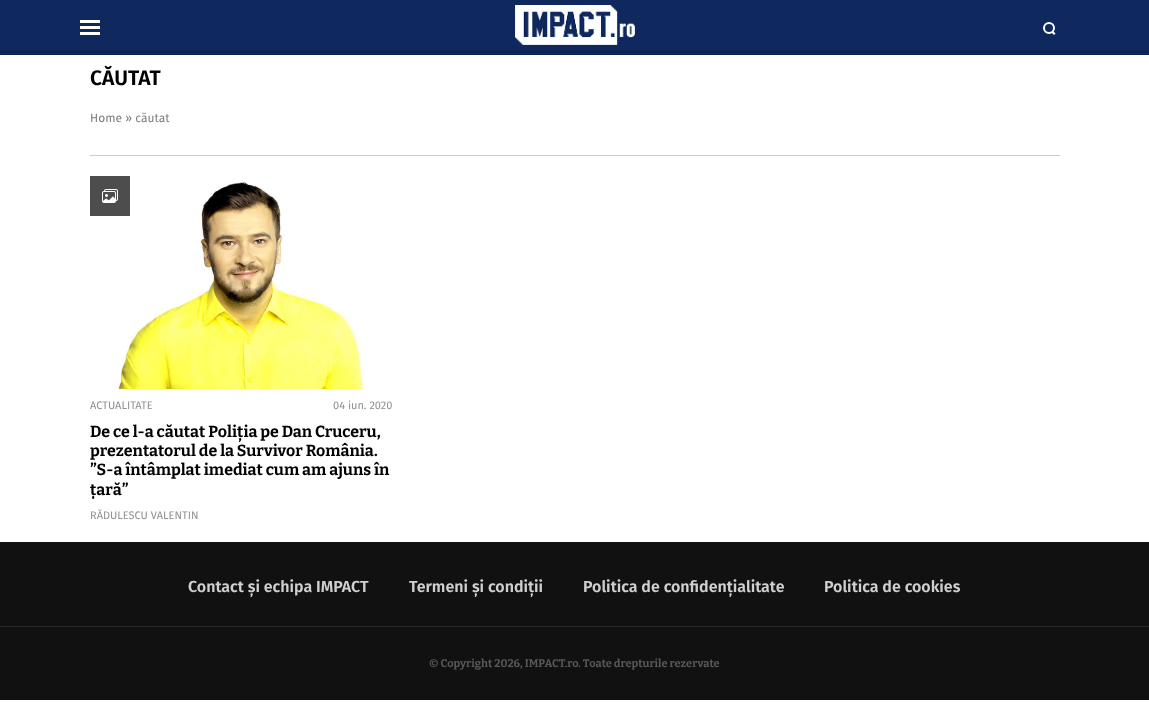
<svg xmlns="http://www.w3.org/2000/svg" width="1149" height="720">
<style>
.a{font:600 21px Fira Sans;fill:#000}
.b{font:12px Fira Sans;fill:#808080}
.c{font:11px Fira Sans;fill:#919191}
.d{font:100 16px Bitter;fill:#000}
.e{font:600 16px Fira Sans;fill:#cfcfcf}
.f{font:100 11px Bitter;fill:#585858}
</style>
<defs>
<clipPath id="clip1"><path d="M90 422h303v77H90z"/></clipPath>
</defs>
<rect width="100%" height="100%" fill="#fff"/>
<path fill="#0f285e" d="M0 0h1149v50H0z"/>
<path fill="#fff" d="M80 26h20v3H80z"/>
<path fill="#fff" d="M80 20h20v3H80z"/>
<path fill="#fff" d="M80 32h20v3H80z"/>
<image href="1.png" x="515" y="5" width="120" height="40"/>
<circle fill="none" stroke="#fff" stroke-width="2" cx="1049" cy="28" r="5"/>
<path fill="#fff" d="M1051.5 32.5l1.5-1.5l2.5 2.5l-1.5 1.5z"/>
<path fill="#0e2455" d="M0 50h1149v5H0z"/>
<path fill="#ccc" d="M90 155h970v1H90z"/>
<image href="3.png" x="118" y="182" width="247" height="207"/>
<path fill="#4d4d4d" d="M90 176h40v40H90z"/>
<image href="2.png" x="102" y="189" width="16" height="14"/>
<path fill="#111" d="M0 542h1149v158H0z"/>
<path fill="#292929" d="M0 626h1149v1H0z"/>
<text class="a" x="90" y="85">CĂUTAT</text>
<text class="b" x="90" y="122">Home » căutat</text>
<text class="c" x="90" y="409">ACTUALITATE</text>
<text class="c" x="333" y="409">04 iun. 2020</text>
<text class="d" x="90" y="437">De ce l-a căutat Poliția pe Dan Cruceru,</text>
<g clip-path="url(#clip1)">
<text class="d" x="90" y="456">prezentatorul de la Survivor România.</text>
</g>
<text class="d" x="90" y="475">”S-a întâmplat imediat cum am ajuns în</text>
<g clip-path="url(#clip1)">
<text class="d" x="90" y="495">țară”</text>
</g>
<text class="c" x="90" y="519">RĂDULESCU VALENTIN</text>
<text class="e" x="188" y="592">Contact și echipa IMPACT</text>
<text class="e" x="409" y="592">Termeni și condiții</text>
<text class="e" x="583" y="592">Politica de confidențialitate</text>
<text class="e" x="824" y="592">Politica de cookies</text>
<text class="f" x="429" y="667">© Copyright 2026, IMPACT.ro. Toate drepturile rezervate</text>
</svg>
